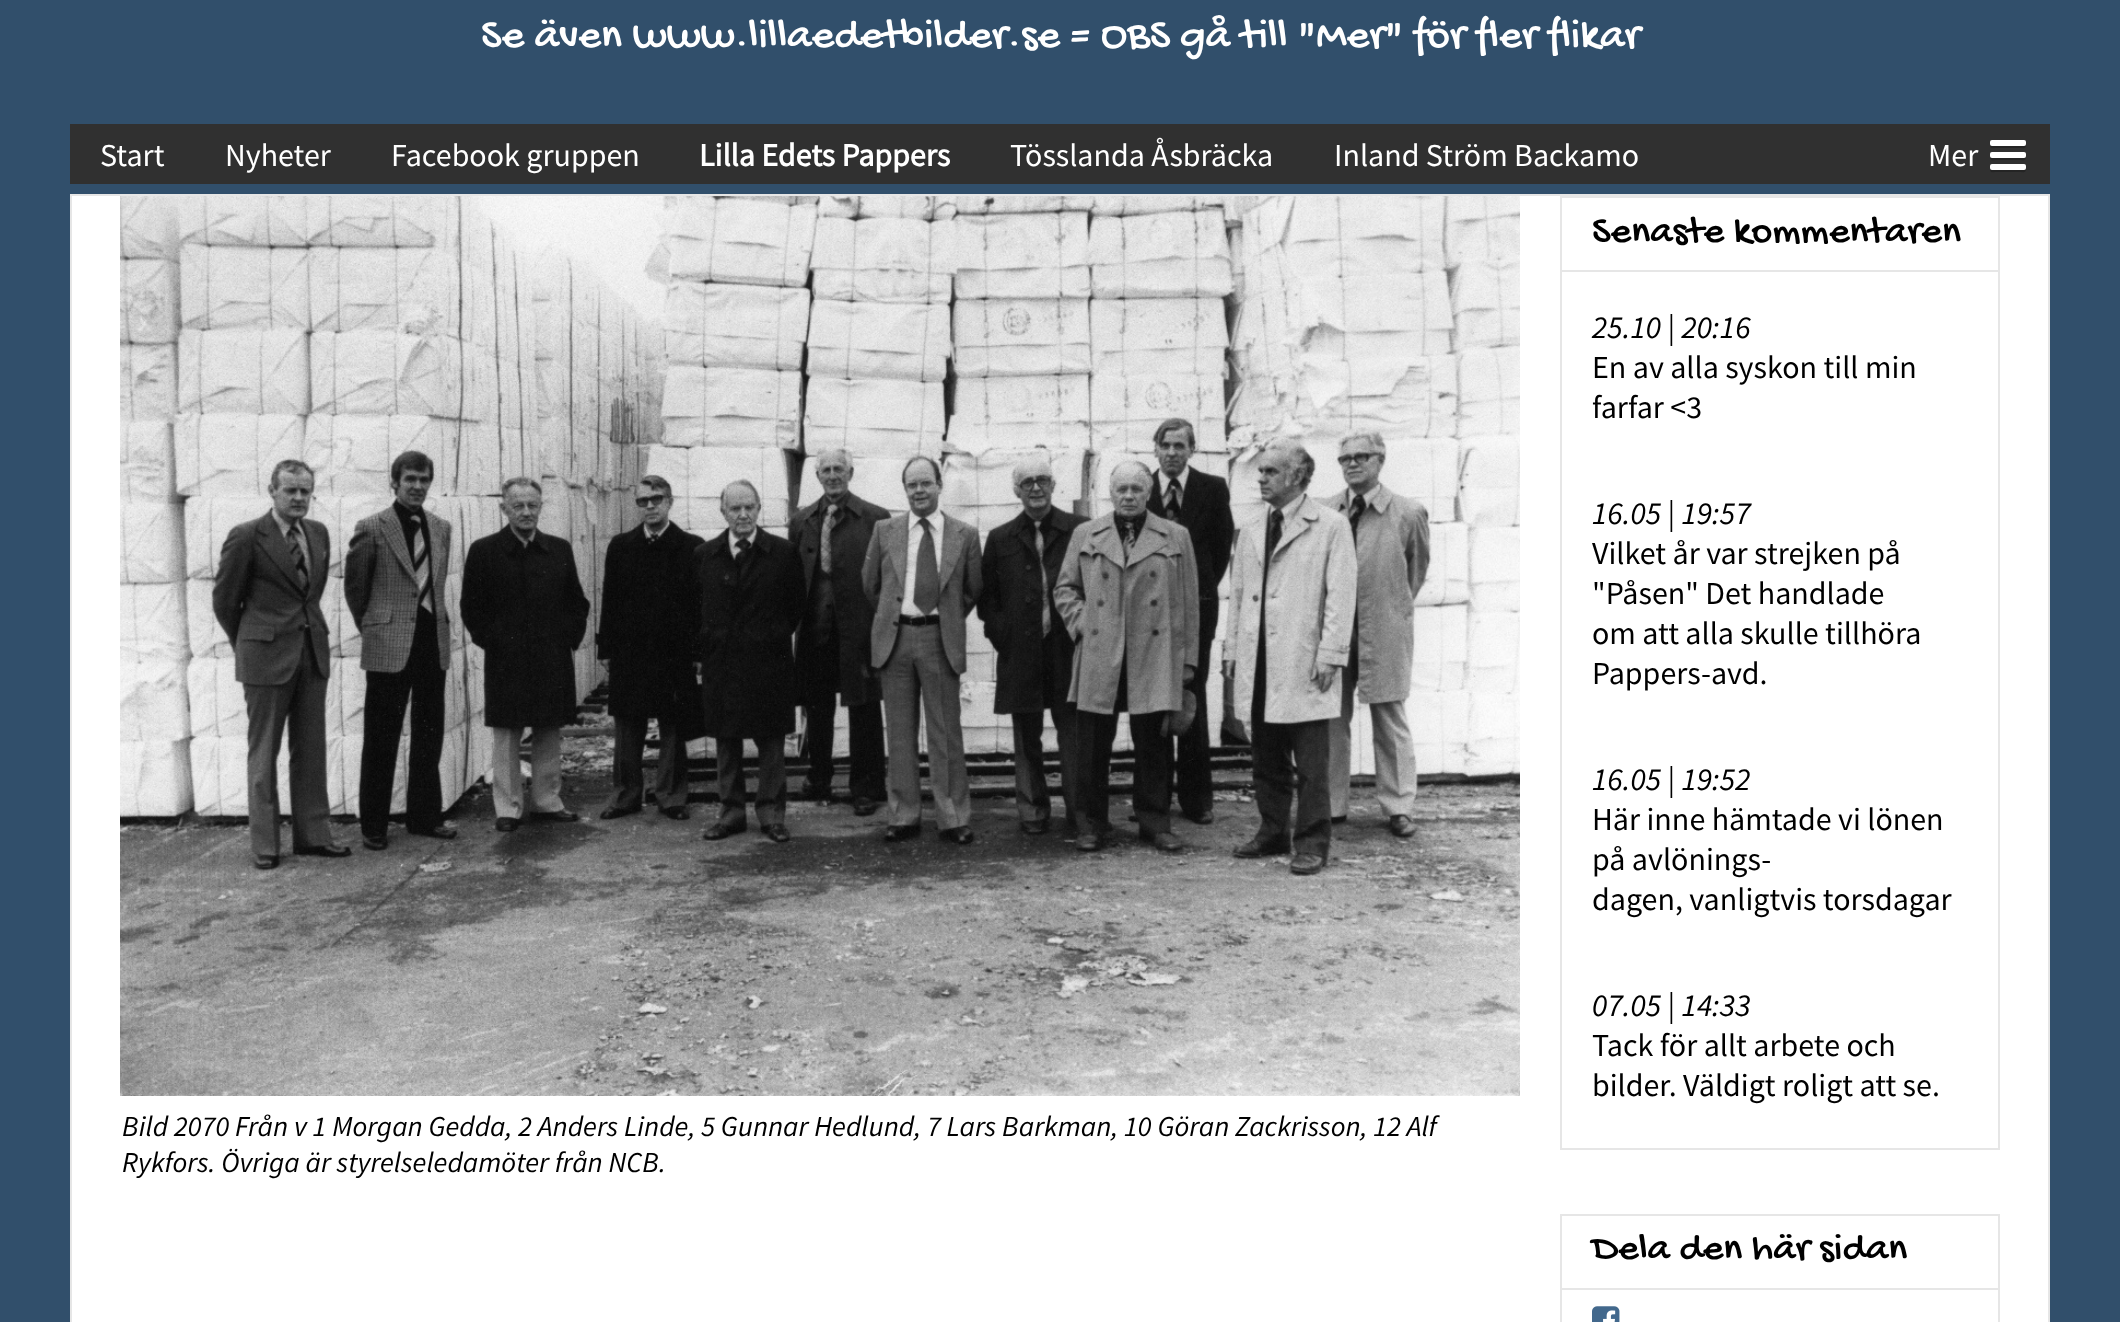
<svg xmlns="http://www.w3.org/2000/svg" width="2120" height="1322">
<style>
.a{font:44px Gochi Hand;fill:#fff}
.b{font:32px Source Sans Pro;fill:#fff}
.c{font:bold 32px Source Sans Pro;fill:#fff}
.d{font:italic 28.8px Source Sans Pro;fill:#000}
.e{font:40px Gochi Hand;fill:#000}
.f{font:italic 32px Source Sans Pro;fill:#000}
.g{font:32px Source Sans Pro;fill:#000}
</style>
<rect width="100%" height="100%" fill="#314f6b"/>
<path fill="#303030" d="M70 124h1980v60H70z"/>
<path fill="#242424" d="M1990 144c0 5.5 2 4 7.5 4h21c5.5 0 7.5 1.5 7.5-4c0 1-1 2-2 2h-32c-1 0-2-1-2-2z"/>
<rect fill="#fff" x="1990" y="140" width="36" height="6" rx="2"/>
<path fill="#242424" d="M1990 156c0 5.5 2 4 7.5 4h21c5.5 0 7.5 1.5 7.5-4c0 1-1 2-2 2h-32c-1 0-2-1-2-2z"/>
<rect fill="#fff" x="1990" y="152" width="36" height="6" rx="2"/>
<path fill="#242424" d="M1990 168c0 5.5 2 4 7.5 4h21c5.5 0 7.5 1.5 7.5-4c0 1-1 2-2 2h-32c-1 0-2-1-2-2z"/>
<rect fill="#fff" x="1990" y="164" width="36" height="6" rx="2"/>
<path fill="#fff" stroke="#e6e6e6" stroke-width="2" d="M71 195h1978v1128H71z"/>
<image href="1.png" x="120" y="196" width="1400" height="900"/>
<path fill="none" stroke="#e6e6e6" stroke-width="2" d="M1561 197h438v952H1561z"/>
<path fill="#e6e6e6" d="M1562 270h436v2H1562z"/>
<path fill="none" stroke="#e6e6e6" stroke-width="2" d="M1561 1215h438v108H1561z"/>
<path fill="#e6e6e6" d="M1562 1288h436v2H1562z"/>
<image href="2.png" x="1592" y="1306" width="28" height="16"/>
<text class="a" x="481" y="46">Se även www.lillaedetbilder.se = OBS gå till "Mer" för fler flikar</text>
<text class="b" x="100" y="166">Start</text>
<text class="b" x="225" y="166">Nyheter</text>
<text class="b" x="391" y="166">Facebook gruppen</text>
<text class="c" x="699" y="166">Lilla Edets Pappers</text>
<text class="b" x="1010" y="166">Tösslanda Åsbräcka</text>
<text class="b" x="1334" y="166">Inland Ström Backamo</text>
<text class="b" x="1928" y="166">Mer</text>
<text class="d" x="122" y="1136">Bild 2070 Från v 1 Morgan Gedda, 2 Anders Linde, 5 Gunnar Hedlund, 7 Lars Barkman, 10 Göran Zackrisson, 12 Alf</text>
<text class="d" x="122" y="1172">Rykfors. Övriga är styrelseledamöter från NCB.</text>
<text class="e" x="1592" y="241">Senaste kommentaren</text>
<text class="f" x="1592" y="338">25.10 | 20:16</text>
<text class="g" x="1592" y="378">En av alla syskon till min</text>
<text class="g" x="1592" y="418">farfar &lt;3</text>
<text class="f" x="1592" y="524">16.05 | 19:57</text>
<text class="g" x="1592" y="564">Vilket år var strejken på</text>
<text class="g" x="1592" y="604">"Påsen" Det handlade</text>
<text class="g" x="1592" y="644">om att alla skulle tillhöra</text>
<text class="g" x="1592" y="684">Pappers-avd.</text>
<text class="f" x="1592" y="790">16.05 | 19:52</text>
<text class="g" x="1592" y="830">Här inne hämtade vi lönen</text>
<text class="g" x="1592" y="870">på avlönings-</text>
<text class="g" x="1592" y="910">dagen, vanligtvis torsdagar</text>
<text class="f" x="1592" y="1016">07.05 | 14:33</text>
<text class="g" x="1592" y="1056">Tack för allt arbete och</text>
<text class="g" x="1592" y="1096">bilder. Väldigt roligt att se.</text>
<text class="e" x="1592" y="1258">Dela den här sidan</text>
</svg>
